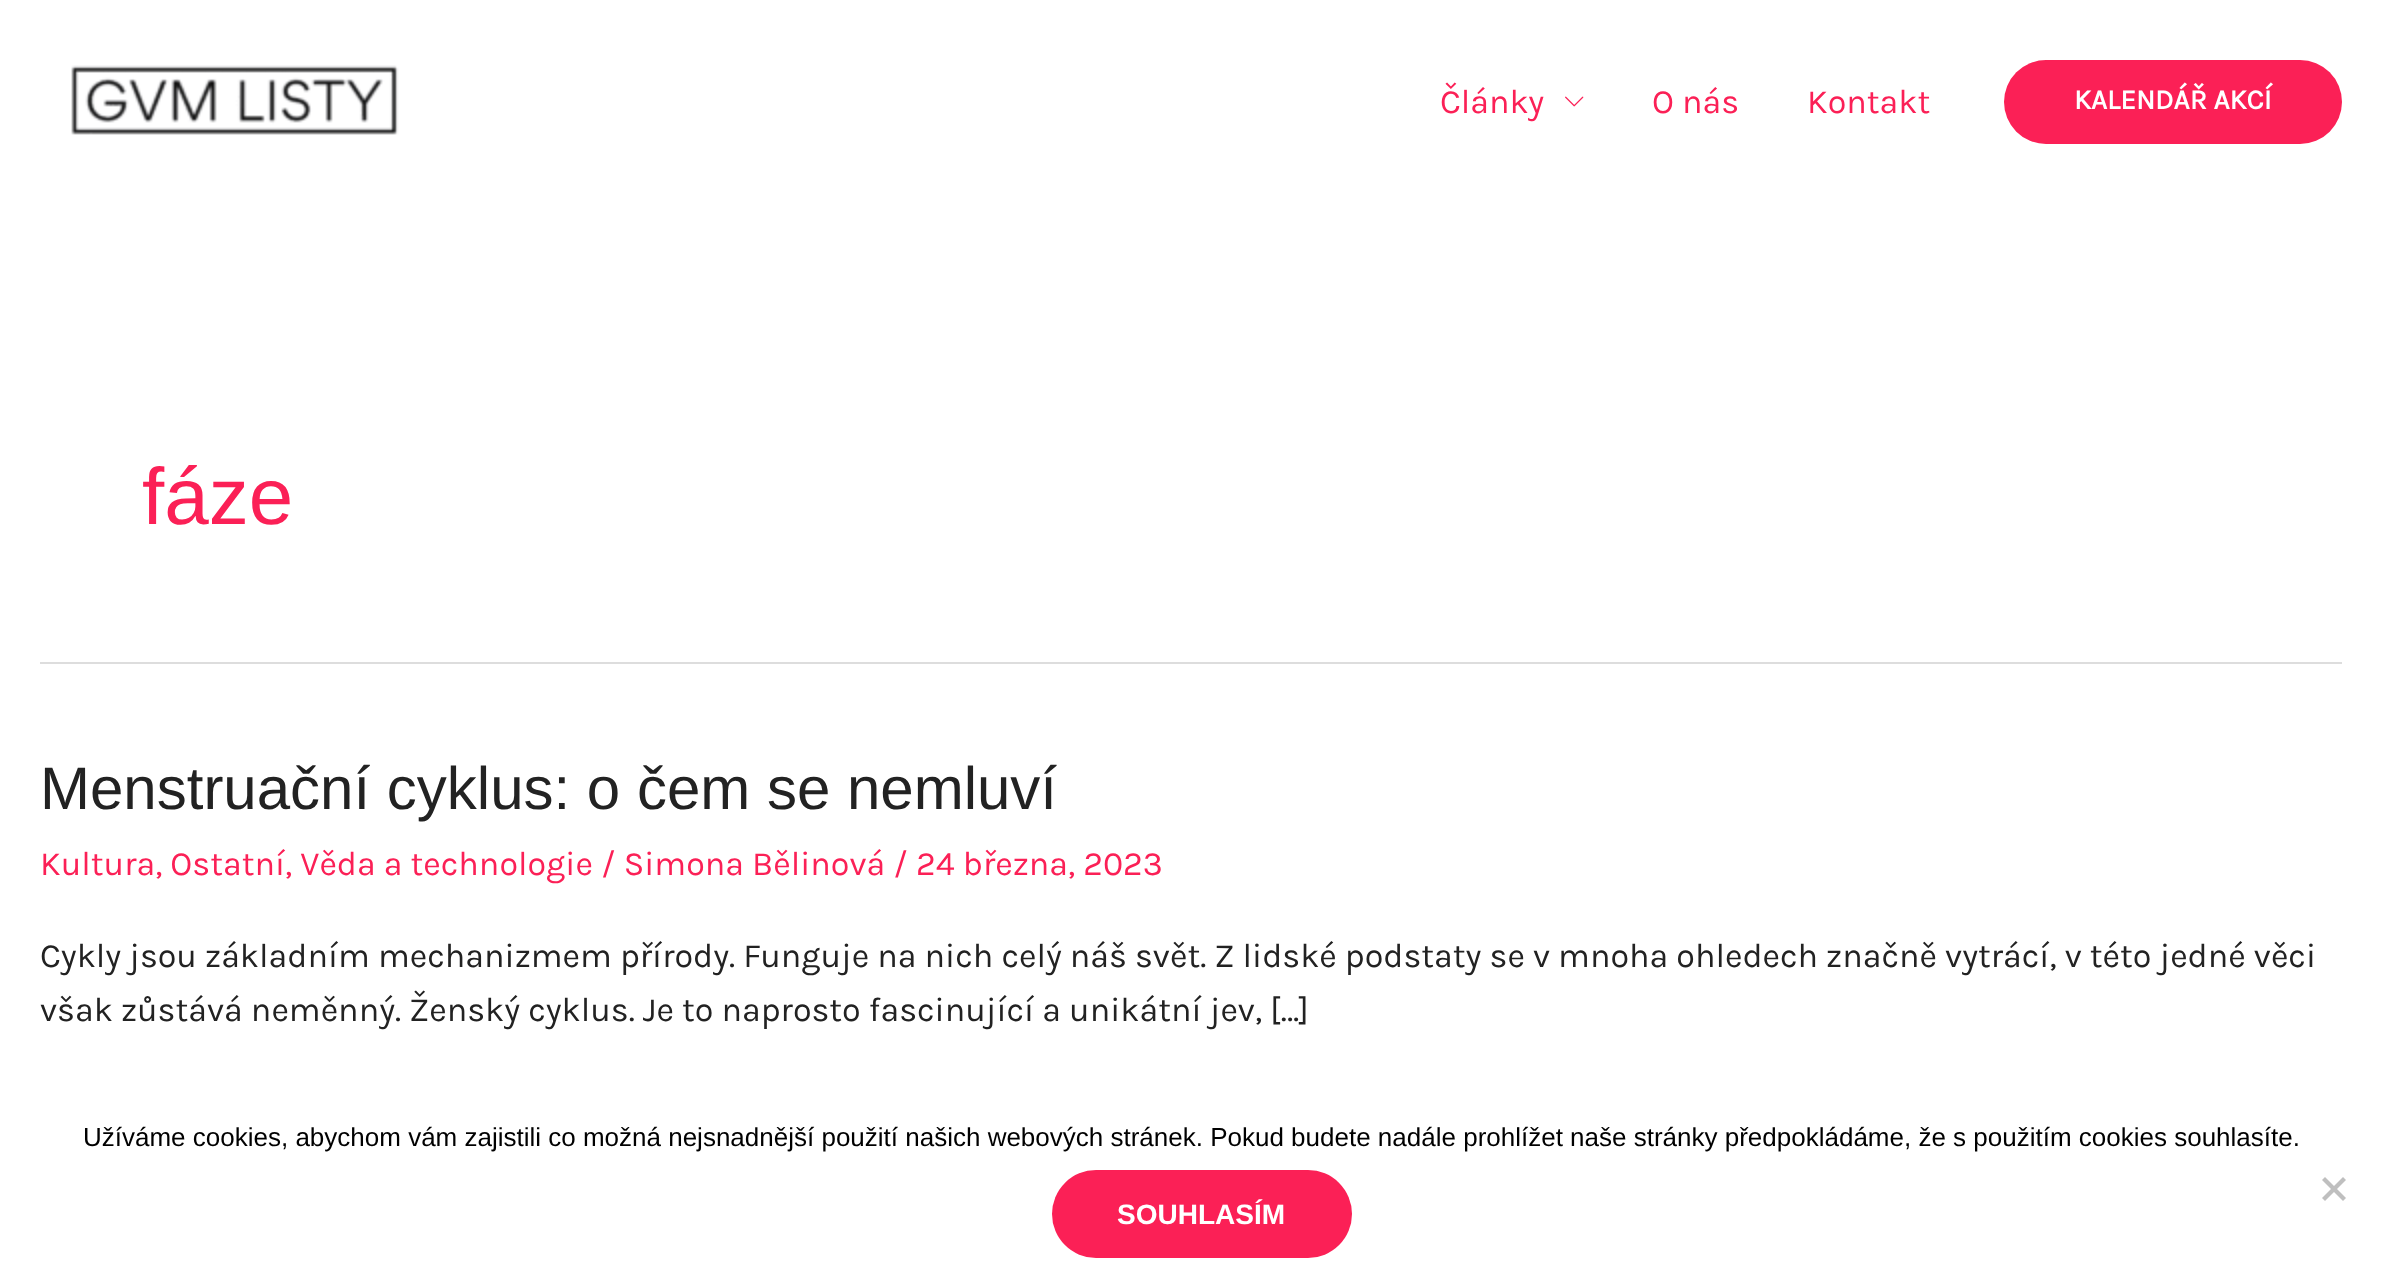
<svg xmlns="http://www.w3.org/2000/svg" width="2381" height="1288">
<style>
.a{font:34px Karla;fill:#fb2056}
.b{font:bold 28px Karla;fill:#fff}
.c{font:80px Liberation Sans;fill:#fb2056}
.d{font:60px Liberation Sans;fill:#222}
.e{font:34px Karla;fill:#222}
.f{font:26px Liberation Sans;fill:#000}
.g{font:bold 28px Liberation Sans;fill:#fff}
</style>
<rect width="100%" height="100%" fill="#fff"/>
<image href="1.png" x="71" y="65" width="328" height="70"/>
<image href="2.png" x="1565" y="96" width="19" height="11"/>
<rect fill="#fb2056" x="2004" y="60" width="338" height="84" rx="42"/>
<path fill="#ddd" d="M40 662h2302v2H40z"/>
<path fill="#bfbfbf" d="M2343 1177l3 3l-21 21l-3-3z"/>
<path fill="#bfbfbf" d="M2322 1180l3-3l21 21l-3 3z"/>
<rect fill="#fb2056" x="1052" y="1170" width="300" height="88" rx="44"/>
<text class="a" x="1440" y="113">Články</text>
<text class="a" x="1652" y="113">O nás</text>
<text class="a" x="1807" y="113">Kontakt</text>
<text class="b" x="2074" y="109">KALENDÁŘ AKCÍ</text>
<text class="c" x="142" y="524">fáze</text>
<text class="d" x="40" y="809">Menstruační cyklus: o čem se nemluví</text>
<text class="a" x="40" y="875">Kultura, Ostatní, Věda a technologie / Simona Bělinová / 24 března, 2023</text>
<text class="e" x="40" y="967">Cykly jsou základním mechanizmem přírody. Funguje na nich celý náš svět. Z lidské podstaty se v mnoha ohledech značně vytrácí, v této jedné věci</text>
<text class="e" x="40" y="1021">však zůstává neměnný. Ženský cyklus. Je to naprosto fascinující a unikátní jev, […]</text>
<text class="f" x="83" y="1146">Užíváme cookies, abychom vám zajistili co možná nejsnadnější použití našich webových stránek. Pokud budete nadále prohlížet naše stránky předpokládáme, že s použitím cookies souhlasíte.</text>
<text class="g" x="1117" y="1224">SOUHLASÍM</text>
</svg>
